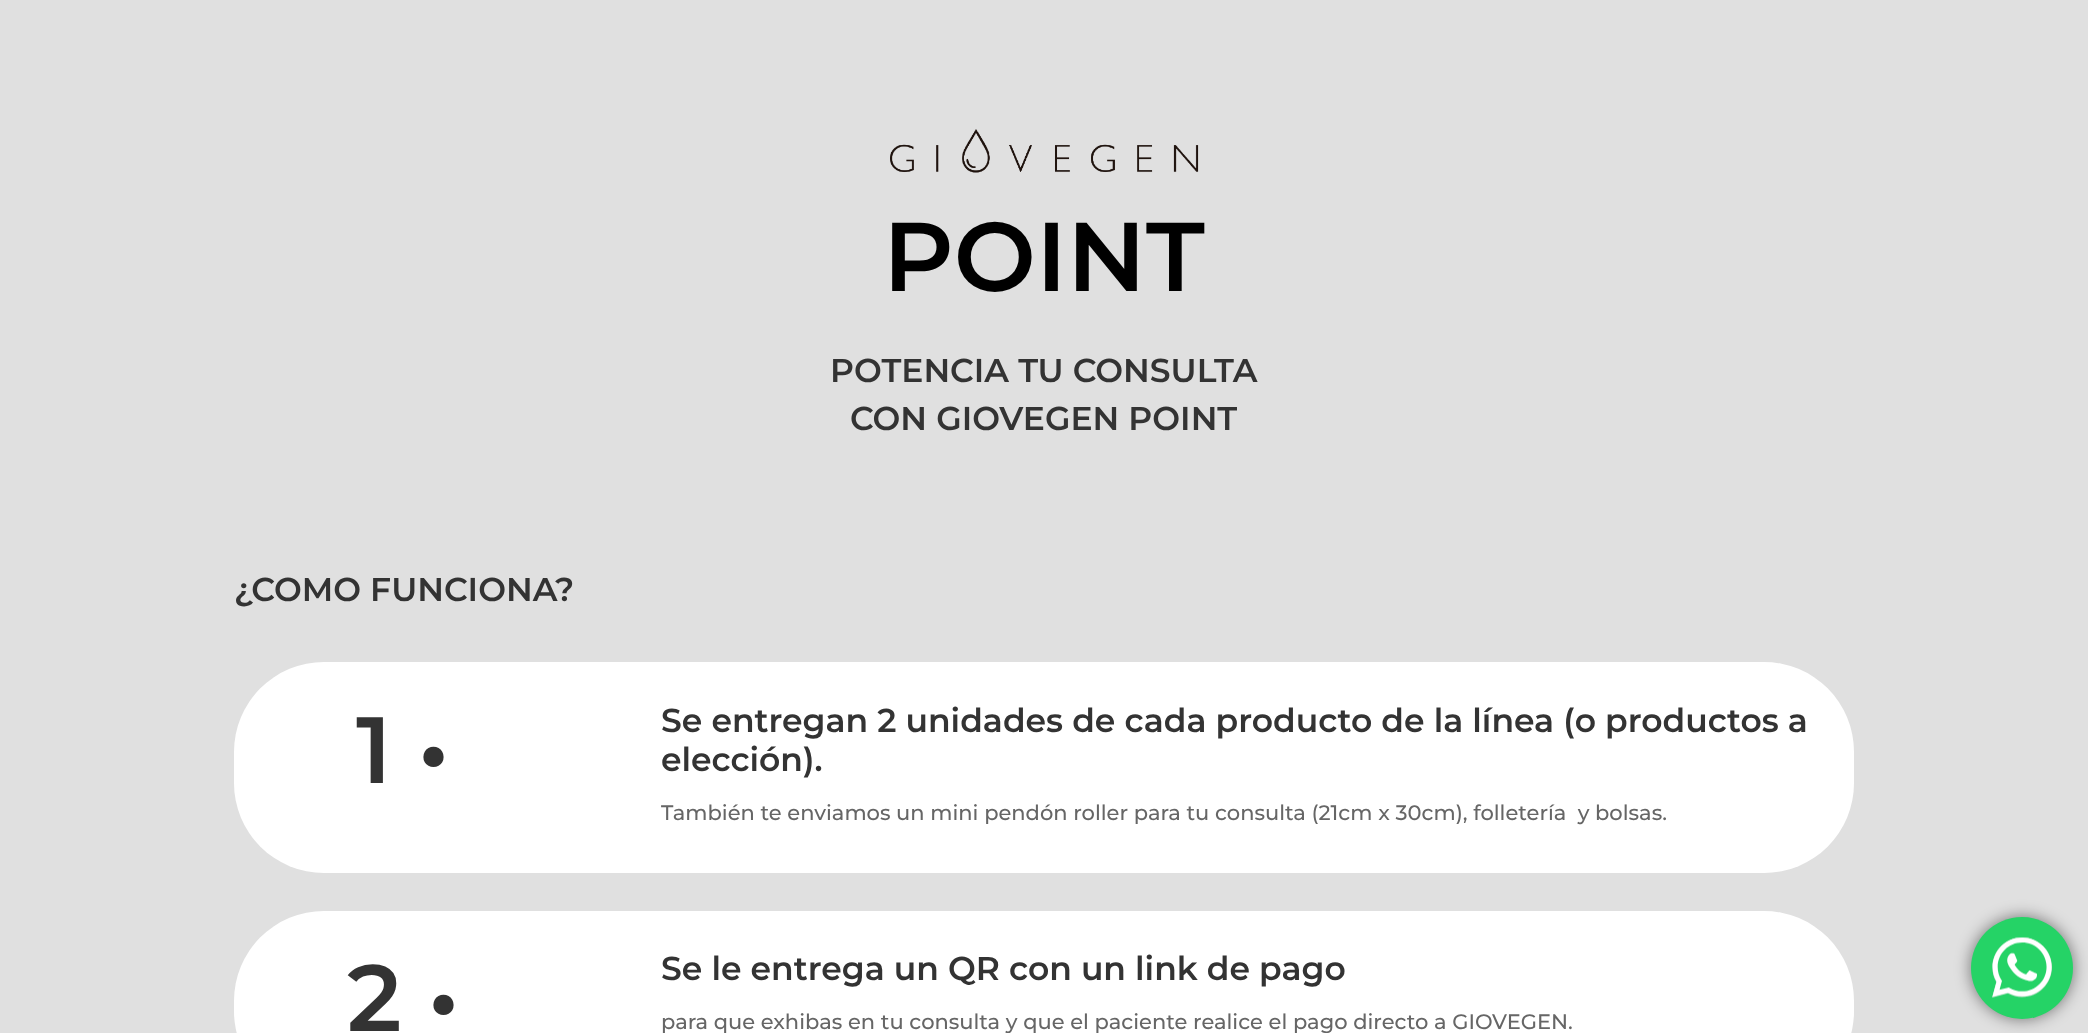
<svg xmlns="http://www.w3.org/2000/svg" width="2088" height="1033">
<style>
.a{font:600 97.5px Montserrat;fill:#000}
.b{font:600 33px Montserrat;fill:#333}
.c{font:600 94px Montserrat;fill:#333}
.d{font:500 21px Montserrat;fill:#666}
</style>
<rect width="100%" height="100%" fill="#e0e0e0"/>
<image href="1.png" x="890" y="129" width="309" height="44"/>
<rect fill="#fff" x="234" y="662" width="1620" height="211" rx="90"/>
<rect fill="#fff" x="234" y="911" width="1620" height="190" rx="90"/>
<rect fill="#00000080" filter="blur(8px)" x="1971" y="917" width="102" height="102" rx="51"/>
<circle fill="#25d366" cx="2022" cy="968" r="51"/>
<image href="2.png" x="1992" y="937" width="60" height="61"/>
<text class="a" x="883" y="291">POINT</text>
<text class="b" x="830" y="382">POTENCIA TU CONSULTA</text>
<text class="b" x="850" y="430">CON GIOVEGEN POINT</text>
<text class="b" x="234" y="601">¿COMO FUNCIONA?</text>
<text class="c" x="356" y="783">1 •</text>
<text class="b" x="661" y="732">Se entregan 2 unidades de cada producto de la línea (o productos a</text>
<text class="b" x="661" y="771">elección).</text>
<text class="d" xml:space="preserve" x="661" y="820">También te enviamos un mini pendón roller para tu consulta (21cm x 30cm), folletería  y bolsas.</text>
<text class="c" x="347" y="1031">2 •</text>
<text class="b" x="661" y="980">Se le entrega un QR con un link de pago</text>
<text class="d" x="661" y="1029">para que exhibas en tu consulta y que el paciente realice el pago directo a GIOVEGEN.</text>
</svg>
